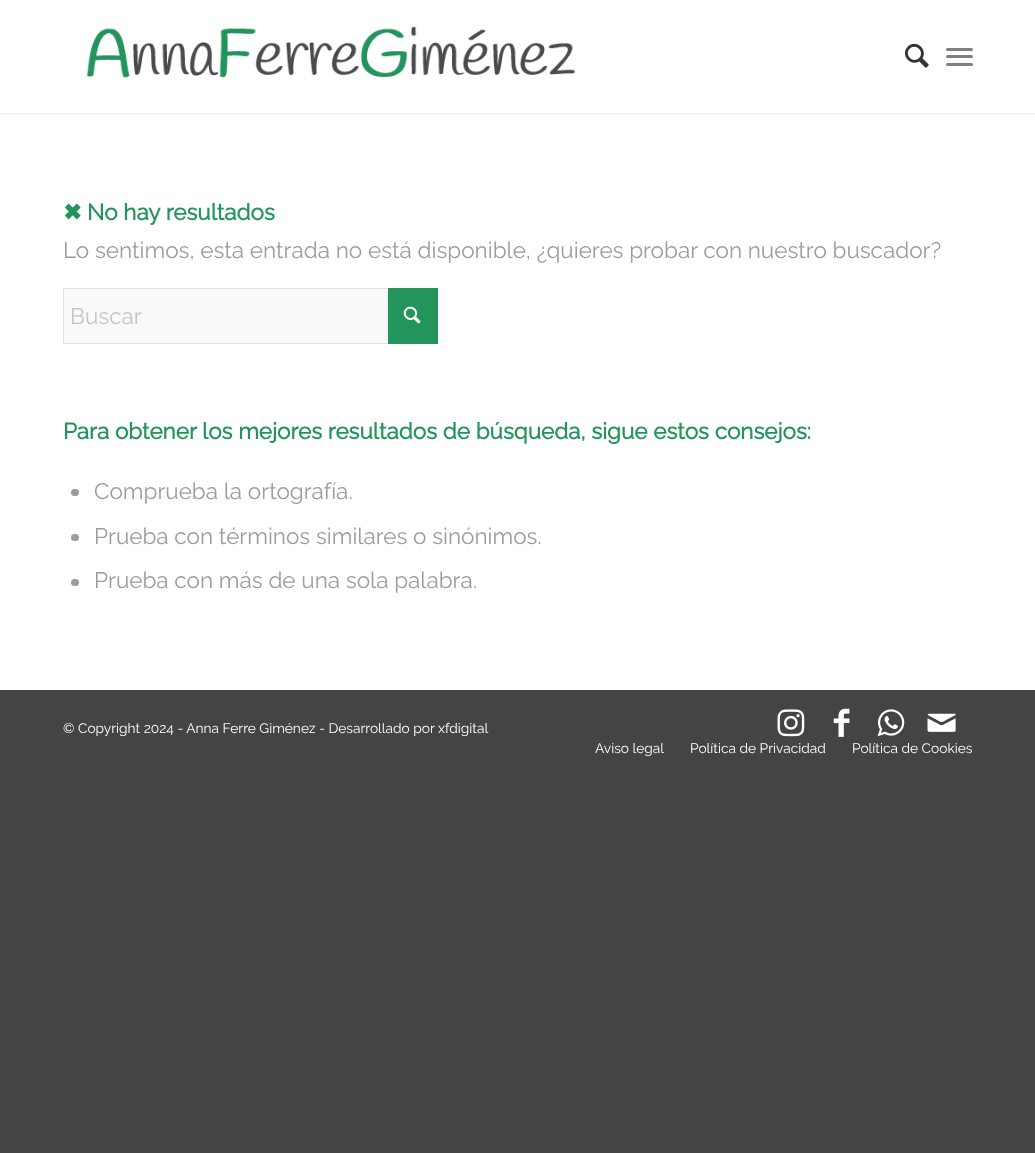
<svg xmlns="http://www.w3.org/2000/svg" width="1035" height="1153">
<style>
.a{font:bold 22.5px DejaVu Sans;fill:#23955c}
.b{font:bold 22.5px Raleway;fill:#23955c}
.c{font:100 22.5px Raleway;fill:#9c9c9c}
.d{font:100 22.5px Raleway;fill:#c5c5c5}
.e{font:100 13.75px Raleway;fill:#fff}
</style>
<rect width="100%" height="100%" fill="#444"/>
<path fill="#fff" d="M0 113h1035v577H0z"/>
<path fill="#0000001a" filter="blur(1px)" d="M-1 -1h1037v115H-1z"/>
<path fill="#fff" d="M0 0h1035v113H0z"/>
<image href="1.png" x="86" y="26" width="490" height="52"/>
<image href="2.png" x="905" y="43" width="24" height="25"/>
<rect fill="#808080" x="946" y="55" width="27" height="3" rx="1.5"/>
<rect fill="#808080" x="946" y="48" width="27" height="3" rx="1.5"/>
<rect fill="#808080" x="946" y="63" width="27" height="3" rx="1.5"/>
<path fill="#f9f9f9" d="M64 289h324v54H64z"/>
<path fill="none" stroke="#e1e1e1" d="M63.5 288.5h374v55H63.5z"/>
<path fill="#23955c" d="M388 288h50v56H388z"/>
<image href="3.png" x="403" y="306" width="18" height="18"/>
<rect fill="#9c9c9c" x="71" y="489" width="8" height="7" rx="3.5"/>
<rect fill="#9c9c9c" x="71" y="534" width="8" height="7" rx="3.5"/>
<rect fill="#9c9c9c" x="71" y="579" width="8" height="7" rx="3.5"/>
<image href="4.png" x="777" y="709" width="28" height="28"/>
<image href="5.png" x="833" y="708" width="17" height="29"/>
<image href="6.png" x="877" y="709" width="28" height="28"/>
<image href="7.png" x="927" y="713" width="29" height="19"/>
<text class="a" x="63" y="220">✖</text>
<text class="b" x="87" y="220">No hay resultados</text>
<text class="c" x="63" y="258">Lo sentimos, esta entrada no está disponible, ¿quieres probar con nuestro buscador?</text>
<text class="d" x="70" y="324">Buscar</text>
<text class="b" x="63" y="439">Para obtener los mejores resultados de búsqueda, sigue estos consejos:</text>
<text class="c" x="94" y="499">Comprueba la ortografía.</text>
<text class="c" x="94" y="544">Prueba con términos similares o sinónimos.</text>
<text class="c" x="94" y="588">Prueba con más de una sola palabra.</text>
<text class="e" x="63" y="733">© Copyright 2024 - Anna Ferre Giménez - Desarrollado por xfdigital</text>
<text class="e" x="595" y="753">Aviso legal</text>
<text class="e" x="690" y="753">Política de Privacidad</text>
<text class="e" x="852" y="753">Política de Cookies</text>
</svg>
